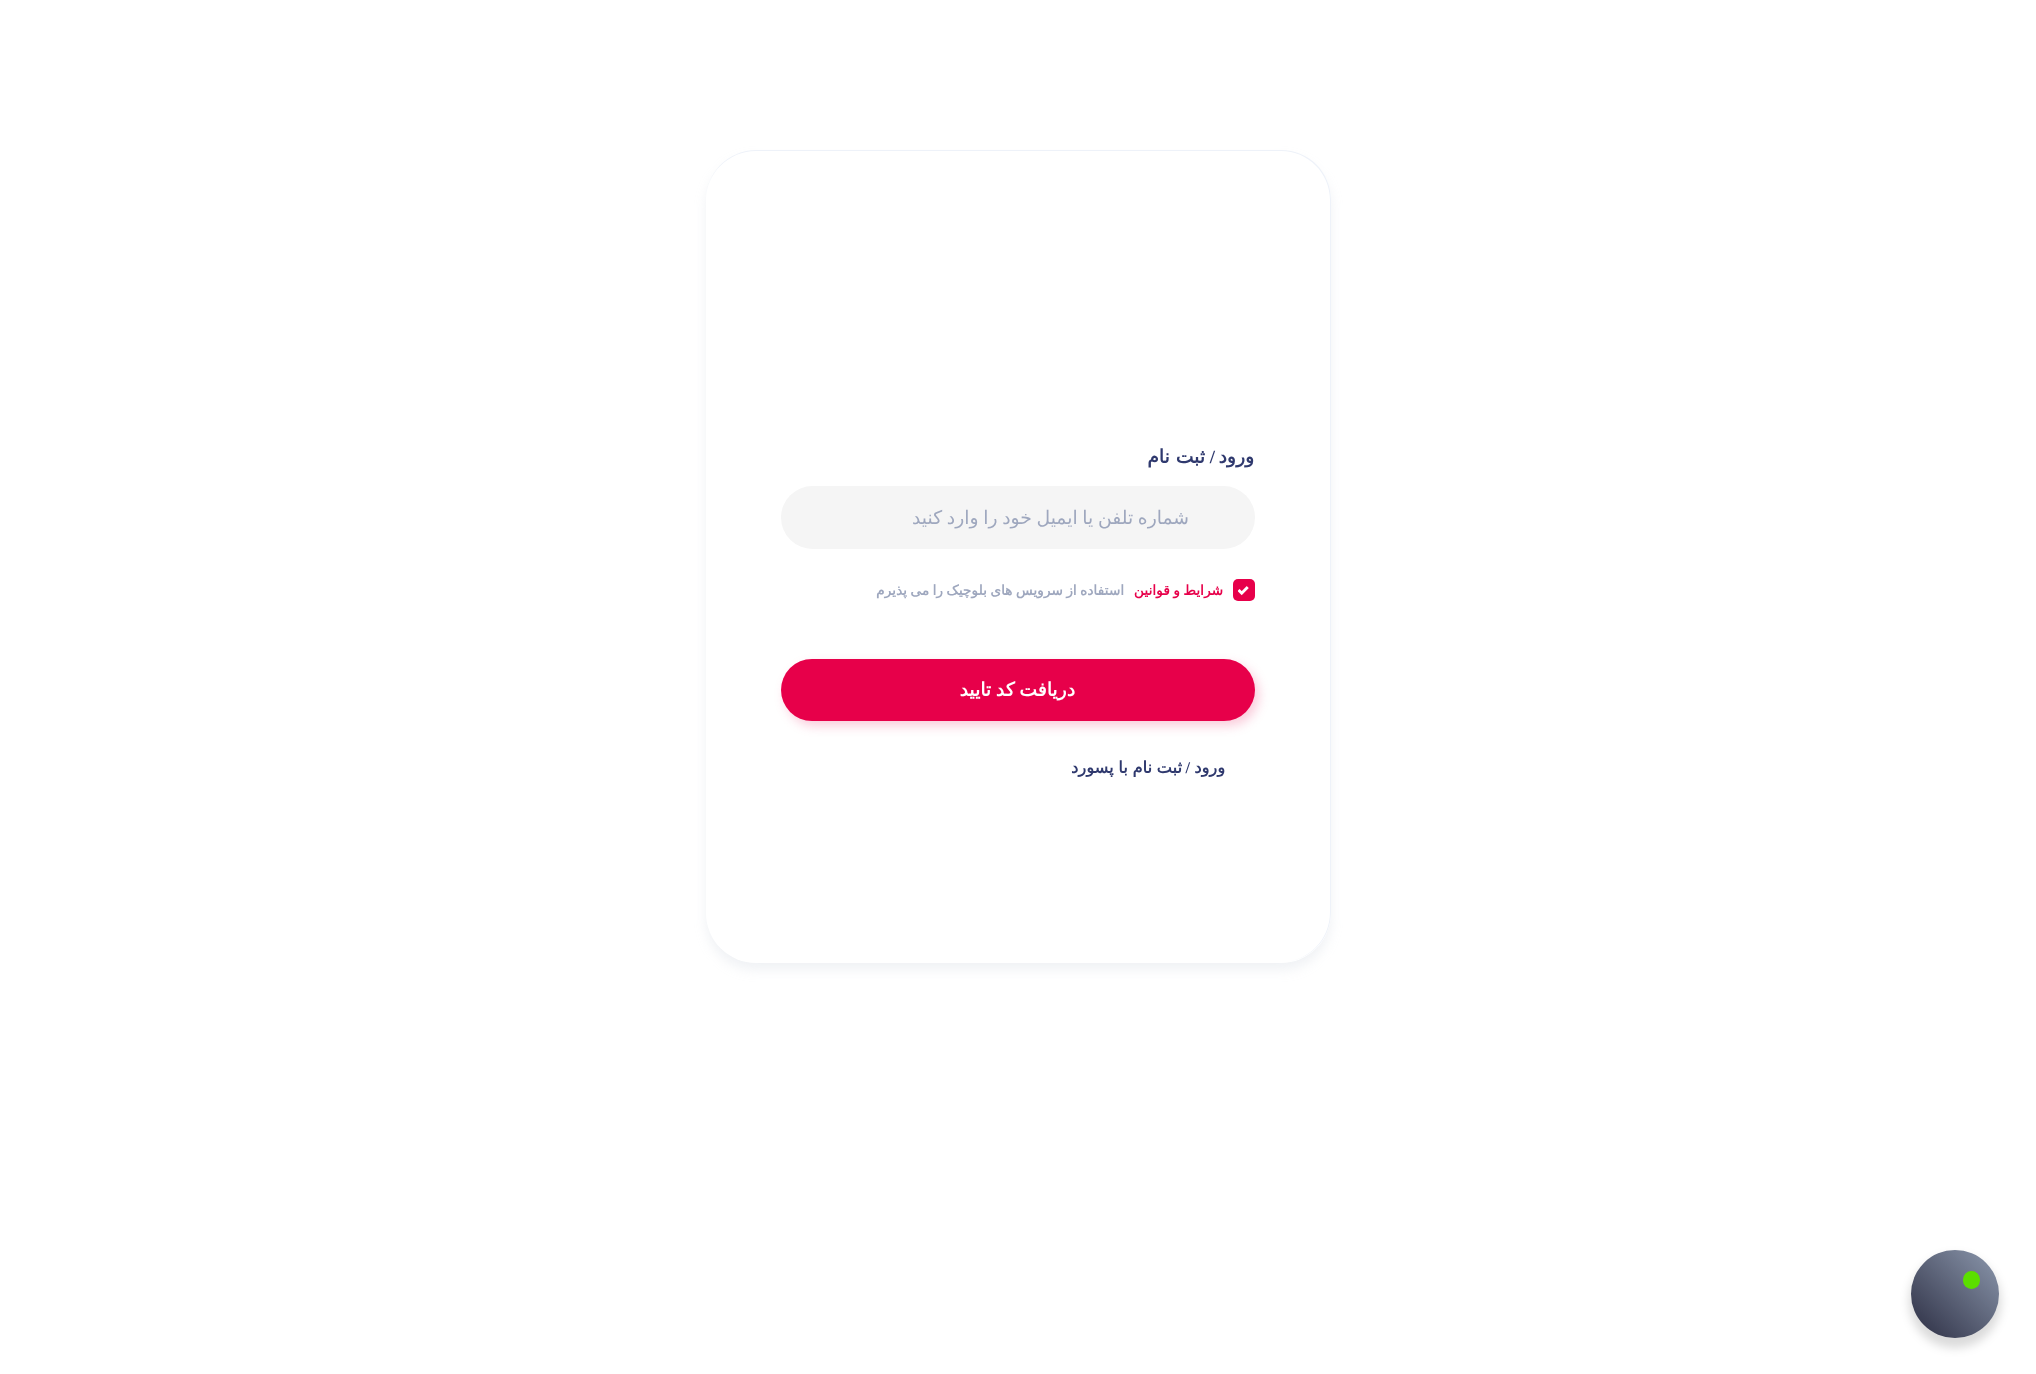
<svg xmlns="http://www.w3.org/2000/svg" width="2036" height="1374">
<style>
.a{font:bold 18.75px DejaVu Sans;direction:rtl;fill:#2f396e}
.b{font:bold 18.75px Liberation Serif;direction:rtl;fill:#2f396e}
.c{font:18.75px DejaVu Sans;direction:rtl;fill:#9ea7be}
.d{font:bold 13.75px DejaVu Sans;direction:rtl;fill:#e7004a}
.e{font:bold 13.75px DejaVu Sans;direction:rtl;fill:#9ea7be}
.f{font:bold 18.75px DejaVu Sans;direction:rtl;fill:#fff}
.g{font:bold 16.25px DejaVu Sans;direction:rtl;fill:#2f396e}
.h{font:bold 16.25px Liberation Serif;direction:rtl;fill:#2f396e}
</style>
<defs>
<linearGradient id="g1" gradientUnits="userSpaceOnUse" x1="1911" y1="1338" x2="1999" y2="1250"><stop offset="0" stop-color="#2b2d42"/><stop offset="1" stop-color="#8d99ae"/></linearGradient>
</defs>
<rect width="100%" height="100%" fill="#fff"/>
<rect fill="#b2bdce33" filter="blur(6px)" x="706" y="158" width="625" height="812" rx="50"/>
<rect fill="#fff" x="706" y="150" width="625" height="813" rx="50"/>
<path fill="#eef2f9" fill-rule="evenodd" d="M756 150h525c28 0 50 22 50 50v712c0 28-22 50-50 50h-525c-27 0-50-22-50-50v-712c0-28 23-50 50-50zm0 1h525c27 0 49 22 49 49v712c0 28-22 50-49 50h-525c-27 0-50-22-50-50v-712c0-27 23-49 50-49z"/>
<rect fill="#f5f5f5" x="781" y="486" width="474" height="63" rx="31.5"/>
<rect fill="#e7004a" x="1233" y="579" width="22" height="22" rx="5"/>
<image href="1.png" x="1238" y="586" width="11" height="10"/>
<rect fill="#e7004a33" filter="blur(5.5px)" x="785" y="664" width="474" height="62" rx="31"/>
<rect fill="#e7004a" x="781" y="659" width="474" height="62" rx="31"/>
<rect fill="#00000024" filter="blur(5px)" x="1909" y="1255" width="92" height="93" rx="46"/>
<circle fill="url(#g1)" cx="1955" cy="1294" r="44"/>
<rect fill="#5bdf00" x="1963" y="1271" width="17" height="18" rx="8.5"/>
<text class="a" x="1254" y="463">ورود</text>
<text class="b" x="1215" y="463">/</text>
<text class="a" x="1205" y="463">ثبت نام</text>
<text class="c" x="1189" y="524" word-spacing="-1.25">شماره تلفن یا ایمیل خود را وارد کنید</text>
<text class="d" x="1223" y="595" word-spacing="-1">شرایط و قوانین</text>
<text class="e" x="1124" y="595" word-spacing="-1">استفاده از سرویس های بلوچیک را می پذیرم</text>
<text class="f" x="1075" y="696" word-spacing="-1.25">دریافت کد تایید</text>
<text class="g" x="1225" y="773">ورود</text>
<text class="h" x="1190" y="773">/</text>
<text class="g" x="1182" y="773" word-spacing="-0.5">ثبت نام با پسورد</text>
</svg>
